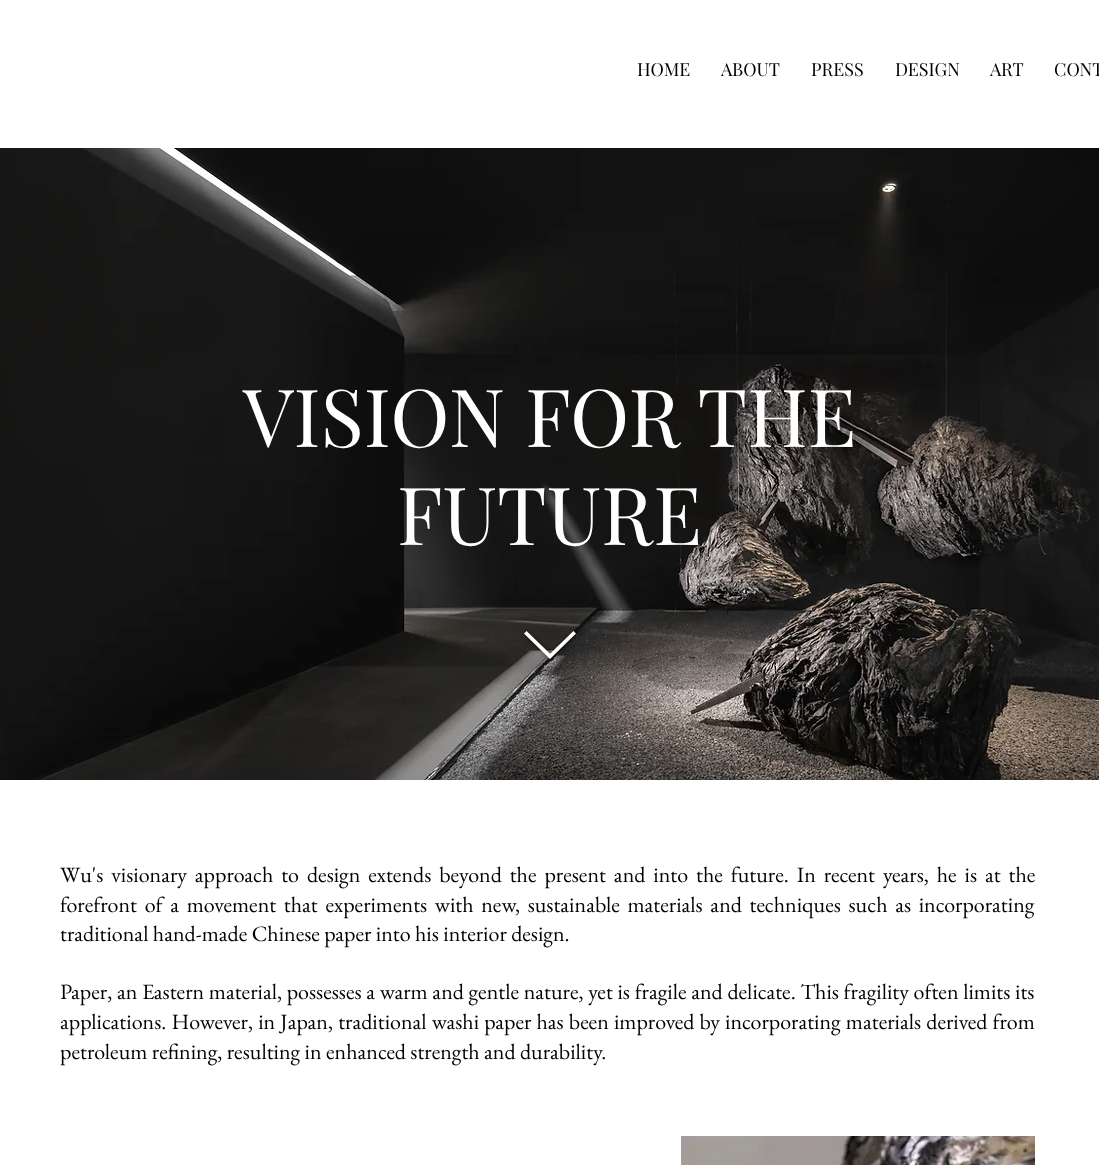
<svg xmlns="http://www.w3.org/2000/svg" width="1099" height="1165">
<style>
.a{font:18px Playfair Display;fill:#000}
.b{font:80px Playfair Display;fill:#fff}
.c{font:22px EB Garamond;fill:#000}
</style>
<rect width="100%" height="100%" fill="#fff"/>
<image href="1.png" x="0" y="148" width="1099" height="632"/>
<image href="2.png" x="524" y="631" width="53" height="29"/>
<image href="3.png" x="681" y="1136" width="354" height="29"/>
<text class="a" x="637" y="76">HOME</text>
<text class="a" x="721" y="76">ABOUT</text>
<text class="a" x="811" y="76">PRESS</text>
<text class="a" x="895" y="76">DESIGN</text>
<text class="a" x="990" y="76">ART</text>
<text class="a" x="1054" y="76">CONT</text>
<text class="b" x="243" y="447">VISION FOR THE</text>
<text class="b" x="397" y="545">FUTURE</text>
<text class="c" x="60" y="882" word-spacing="3.5">Wu's visionary approach to design extends beyond the present and into the future. In recent years, he is at the</text>
<text class="c" x="60" y="912" word-spacing="3.25">forefront of a movement that experiments with new, sustainable materials and techniques such as incorporating</text>
<text class="c" x="60" y="941">traditional hand-made Chinese paper into his interior design.</text>
<text class="c" x="60" y="999" word-spacing="0.25">Paper, an Eastern material, possesses a warm and gentle nature, yet is fragile and delicate. This fragility often limits its</text>
<text class="c" x="60" y="1029" word-spacing="0.75">applications. However, in Japan, traditional washi paper has been improved by incorporating materials derived from</text>
<text class="c" x="60" y="1059">petroleum refining, resulting in enhanced strength and durability.</text>
</svg>
